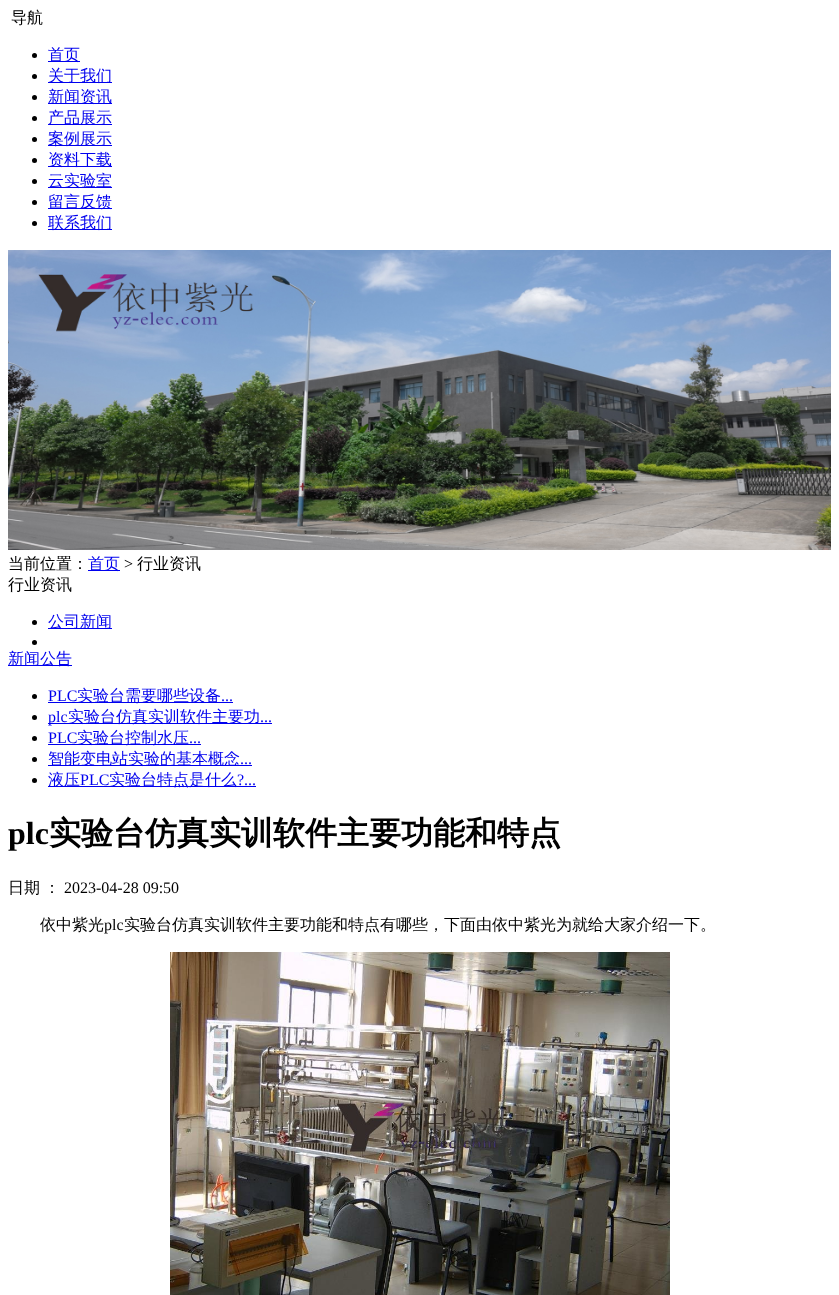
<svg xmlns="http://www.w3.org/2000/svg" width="839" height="1295">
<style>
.a{font:500 16px WenQuanYi Zen Hei;fill:#000}
.b{font:500 16px WenQuanYi Zen Hei;fill:#00e}
.c{font:16px Liberation Serif;fill:#000}
.d{font:16px Liberation Serif;fill:#00e}
.e{font:bold 32px Liberation Serif;fill:#000}
.f{font:bold 32px WenQuanYi Zen Hei;fill:#000}
</style>
<rect width="100%" height="100%" fill="#fff"/>
<circle fill="#000" cx="34.5" cy="55.5" r="2.5"/>
<path fill="#00e" d="M48 61h32v1H48z"/>
<circle fill="#000" cx="34.5" cy="76.5" r="2.5"/>
<path fill="#00e" d="M48 82h64v1H48z"/>
<circle fill="#000" cx="34.5" cy="97.5" r="2.5"/>
<path fill="#00e" d="M48 103h64v1H48z"/>
<circle fill="#000" cx="34.5" cy="118.5" r="2.5"/>
<path fill="#00e" d="M48 124h64v1H48z"/>
<circle fill="#000" cx="34.5" cy="139.5" r="2.5"/>
<path fill="#00e" d="M48 145h64v1H48z"/>
<circle fill="#000" cx="34.5" cy="160.5" r="2.5"/>
<path fill="#00e" d="M48 166h64v1H48z"/>
<circle fill="#000" cx="34.5" cy="181.5" r="2.5"/>
<path fill="#00e" d="M48 187h64v1H48z"/>
<circle fill="#000" cx="34.5" cy="202.5" r="2.5"/>
<path fill="#00e" d="M48 208h64v1H48z"/>
<circle fill="#000" cx="34.5" cy="223.5" r="2.5"/>
<path fill="#00e" d="M48 229h64v1H48z"/>
<image href="1.png" x="8" y="250" width="823" height="300"/>
<path fill="#00e" d="M88 570h32v1H88z"/>
<circle fill="#000" cx="34.5" cy="622.5" r="2.5"/>
<path fill="#00e" d="M48 628h64v1H48z"/>
<circle fill="#000" cx="34.5" cy="642.5" r="2.5"/>
<path fill="#00e" d="M8 665h64v1H8z"/>
<circle fill="#000" cx="34.5" cy="696.5" r="2.5"/>
<path fill="#00e" d="M48 702h185v1H48z"/>
<circle fill="#000" cx="34.5" cy="717.5" r="2.5"/>
<path fill="#00e" d="M48 723h224v1H48z"/>
<circle fill="#000" cx="34.5" cy="738.5" r="2.5"/>
<path fill="#00e" d="M48 744h153v1H48z"/>
<circle fill="#000" cx="34.5" cy="759.5" r="2.5"/>
<path fill="#00e" d="M48 765h204v1H48z"/>
<circle fill="#000" cx="34.5" cy="780.5" r="2.5"/>
<path fill="#00e" d="M48 786h208v1H48z"/>
<image href="2.png" x="170" y="952" width="500" height="343"/>
<text class="a" x="11" y="23">导航</text>
<text class="b" x="48" y="60">首页</text>
<text class="b" x="48" y="81">关于我们</text>
<text class="b" x="48" y="102">新闻资讯</text>
<text class="b" x="48" y="123">产品展示</text>
<text class="b" x="48" y="144">案例展示</text>
<text class="b" x="48" y="165">资料下载</text>
<text class="b" x="48" y="186">云实验室</text>
<text class="b" x="48" y="207">留言反馈</text>
<text class="b" x="48" y="228">联系我们</text>
<text class="a" x="8" y="569">当前位置：</text>
<text class="b" x="88" y="569">首页</text>
<text class="c" x="124" y="569">&gt;</text>
<text class="a" x="137" y="569">行业资讯</text>
<text class="a" x="8" y="590">行业资讯</text>
<text class="b" x="48" y="627">公司新闻</text>
<text class="b" x="8" y="664">新闻公告</text>
<text class="d" x="48" y="701">PLC</text>
<text class="b" x="77" y="701">实验台需要哪些设备</text>
<text class="d" x="221" y="701">...</text>
<text class="d" x="48" y="722">plc</text>
<text class="b" x="68" y="722">实验台仿真实训软件主要功</text>
<text class="d" x="260" y="722">...</text>
<text class="d" x="48" y="743">PLC</text>
<text class="b" x="77" y="743">实验台控制水压</text>
<text class="d" x="189" y="743">...</text>
<text class="b" x="48" y="764">智能变电站实验的基本概念</text>
<text class="d" x="240" y="764">...</text>
<text class="b" x="48" y="785">液压</text>
<text class="d" x="80" y="785">PLC</text>
<text class="b" x="109" y="785">实验台特点是什么</text>
<text class="d" x="237" y="785">?...</text>
<text class="e" x="8" y="844">plc</text>
<text class="f" x="49" y="844">实验台仿真实训软件主要功能和特点</text>
<text class="a" x="8" y="893">日期</text>
<text class="a" x="44" y="893">：</text>
<text class="c" x="64" y="893">2023-04-28 09:50</text>
<text class="a" x="40" y="930">依中紫光</text>
<text class="c" x="104" y="930">plc</text>
<text class="a" x="124" y="930">实验台仿真实训软件主要功能和特点有哪些，下面由依中紫光为就给大家介绍一下。</text>
</svg>
